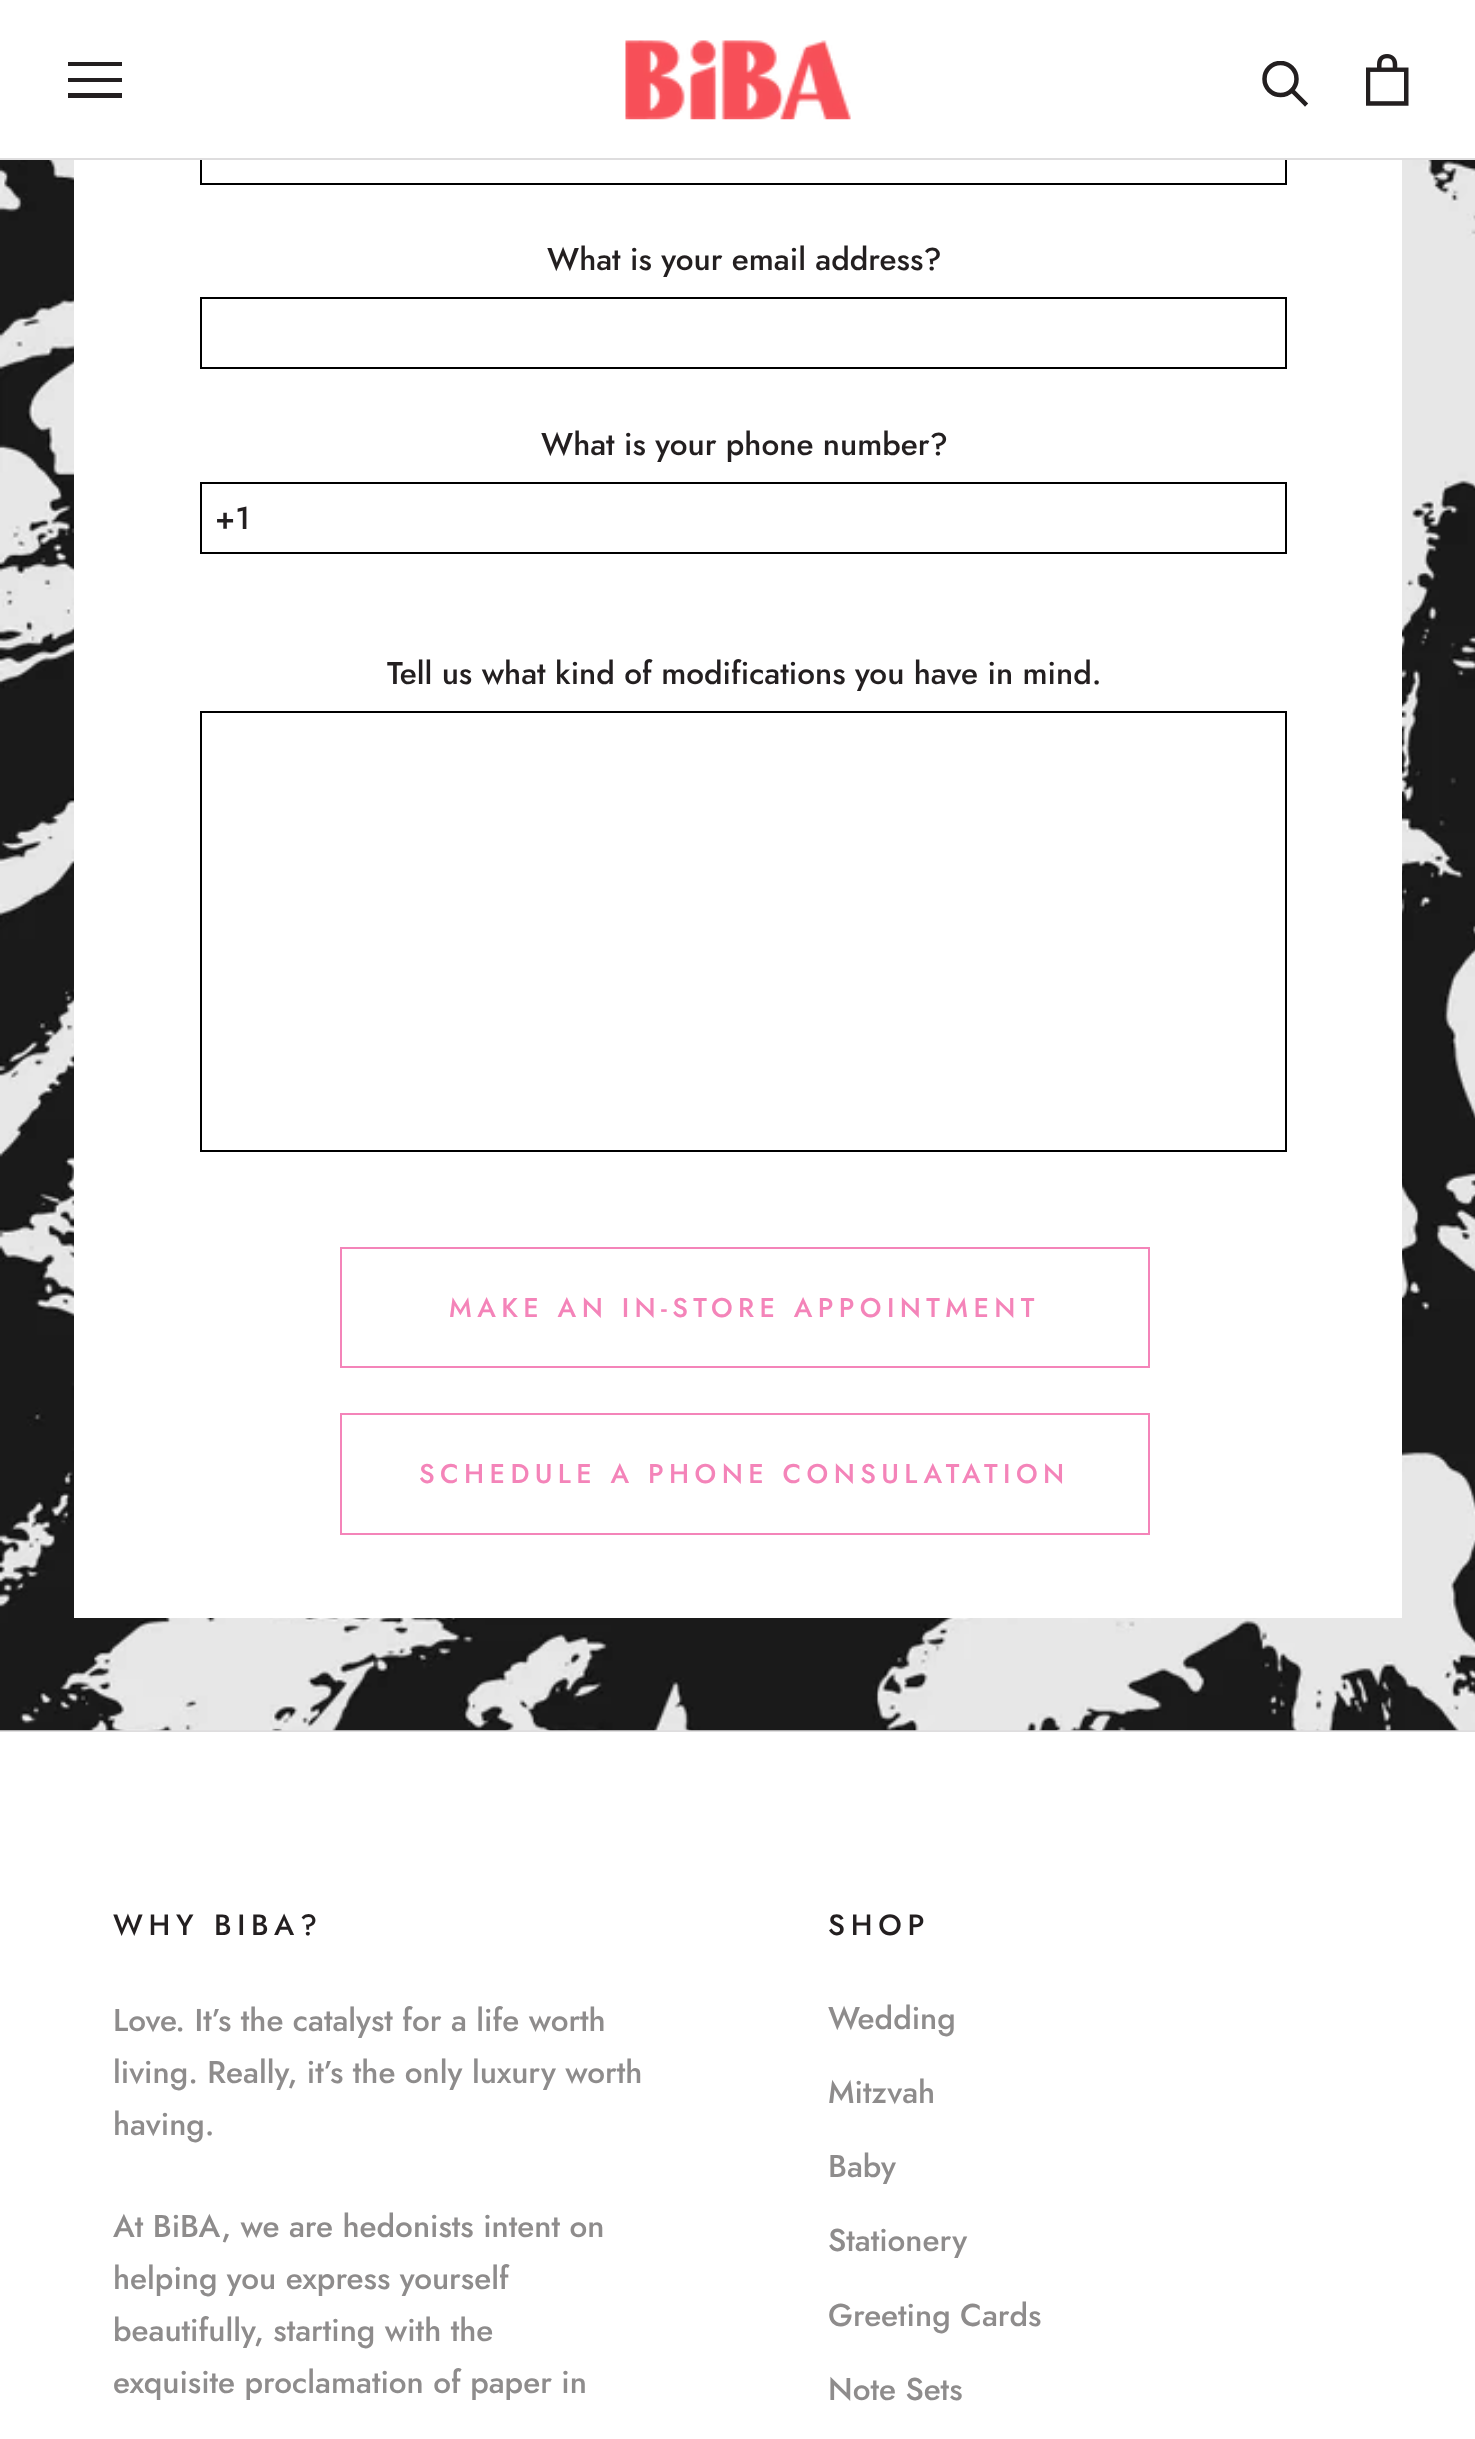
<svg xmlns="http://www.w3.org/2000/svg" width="1475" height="2439">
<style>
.a{font:500 31.5px Jost;fill:#231f20}
.b{font:500 27px Jost;letter-spacing:5.4px;fill:#f484b9}
.c{font:500 29.25px Jost;letter-spacing:5.75px;fill:#231f20}
.d{font:500 31.5px Jost;fill:#8e8c8c}
</style>
<defs>
<clipPath id="clip1"><path d="M1262 61h48v47H1262z"/></clipPath>
</defs>
<rect width="100%" height="100%" fill="#fff"/>
<path fill="#deddde" d="M0 1730h1475v2H0z"/>
<image href="3.png" x="0" y="160" width="1475" height="1571"/>
<path fill="#fff" d="M74 160h1328v1458H74z"/>
<path fill="none" stroke="#000" stroke-width="2" d="M201 114h1085v70H201z"/>
<path fill="#fff" d="M200 113h1087v45H200z"/>
<path fill="#deddde" d="M0 158h1475v2H0z"/>
<path fill="#231f20" d="M68 98v-5h54v5zm0-20h54v4h-54zm0-16h54v4h-54z"/>
<image href="1.png" x="625" y="40" width="226" height="80"/>
<path fill="none" stroke="#231f20" stroke-width="4.5" stroke-linecap="square" d="M1305 103.5l-13-13"/>
<g clip-path="url(#clip1)">
<circle fill="none" stroke="#231f20" stroke-width="4.5" cx="1280.5" cy="79" r="16"/>
</g>
<image href="2.png" x="1366" y="54" width="43" height="52"/>
<path fill="none" stroke="#000" stroke-width="2" d="M201 298h1085v70H201z"/>
<path fill="none" stroke="#000" stroke-width="2" d="M201 483h1085v70H201z"/>
<path fill="none" stroke="#000" stroke-width="2" d="M201 712h1085v439H201z"/>
<path fill="none" stroke="#f484b9" stroke-width="2" d="M341 1248h808v119H341z"/>
<path fill="none" stroke="#f484b9" stroke-width="2" d="M341 1414h808v120H341z"/>
<text class="a" x="547" y="270">What is your email address?</text>
<text class="a" x="541" y="455">What is your phone number?</text>
<text class="a" x="215" y="529">+1</text>
<text class="a" x="387" y="684">Tell us what kind of modifications you have in mind.</text>
<text class="b" x="449" y="1317">MAKE AN IN-STORE APPOINTMENT</text>
<text class="b" x="419" y="1483">SCHEDULE A PHONE CONSULATATION</text>
<text class="c" x="113" y="1935">WHY BIBA?</text>
<text class="d" x="113" y="2031">Love. It’s the catalyst for a life worth</text>
<text class="d" x="113" y="2083">living. Really, it’s the only luxury worth</text>
<text class="d" x="113" y="2135">having.</text>
<text class="d" x="113" y="2237">At BiBA, we are hedonists intent on</text>
<text class="d" x="113" y="2289">helping you express yourself</text>
<text class="d" x="113" y="2341">beautifully, starting with the</text>
<text class="d" x="113" y="2393">exquisite proclamation of paper in</text>
<text class="c" x="828" y="1935">SHOP</text>
<text class="d" x="828" y="2029">Wedding</text>
<text class="d" x="828" y="2103">Mitzvah</text>
<text class="d" x="828" y="2177">Baby</text>
<text class="d" x="828" y="2251">Stationery</text>
<text class="d" x="828" y="2326">Greeting Cards</text>
<text class="d" x="828" y="2400">Note Sets</text>
</svg>
